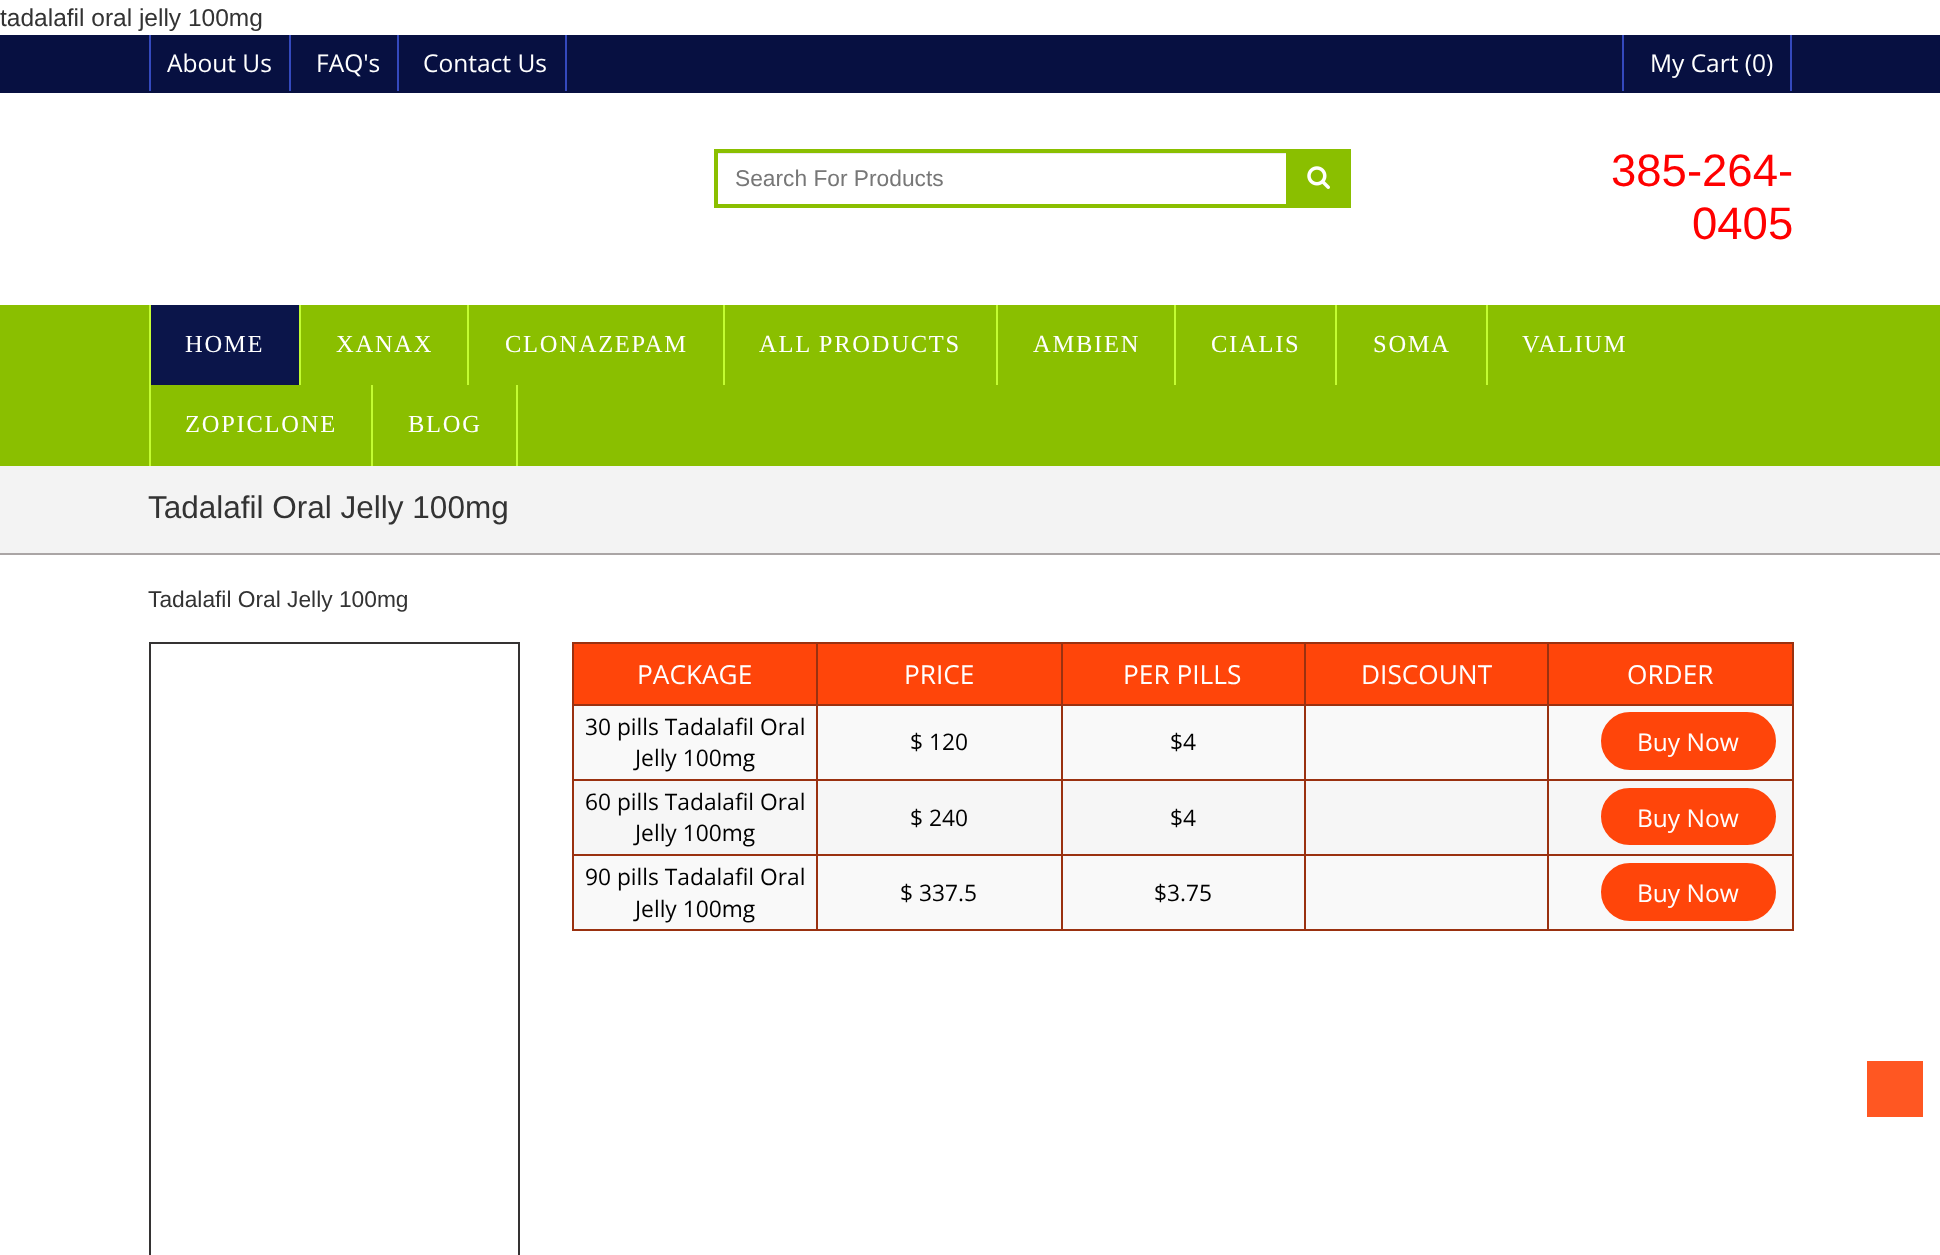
<svg xmlns="http://www.w3.org/2000/svg" width="1940" height="1255">
<style>
.a{font:24.5px Liberation Sans;fill:#333}
.b{font:24.5px Open Sans;fill:#fff}
.c{font:22.75px Liberation Sans;fill:#777}
.d{font:45.5px Liberation Sans;fill:#f00}
.e{font:24.5px Liberation Serif;letter-spacing:1.75px;fill:#fff}
.f{font:31.5px Liberation Sans;fill:#333}
.g{font:22.75px Liberation Sans;fill:#333}
.h{font:26.25px Open Sans;fill:#fff}
.i{font:22.75px Open Sans;fill:#000}
</style>
<rect width="100%" height="100%" fill="#fff"/>
<path fill="#071041" d="M0 35h1940v58H0z"/>
<path fill="#3449bd" d="M289 35h2v56H289z"/>
<path fill="#3449bd" d="M149 35h2v56H149z"/>
<path fill="#3449bd" d="M397 35h2v56H397z"/>
<path fill="#3449bd" d="M565 35h2v56H565z"/>
<path fill="#3449bd" d="M1790 35h2v56H1790z"/>
<path fill="#3449bd" d="M1622 35h2v56H1622z"/>
<path fill="#ececec" d="M718 153h568v1H718z"/>
<path fill="none" stroke="#8abf00" stroke-width="4" d="M716 151h572v55H716z"/>
<path fill="#8abf00" d="M1290 149h61v59H1290z"/>
<image href="1.png" x="1307" y="166" width="23" height="23"/>
<path fill="#8abf00" d="M0 305h1940v161H0z"/>
<path fill="#0b154a" d="M151 305h148v80H151z"/>
<path fill="#c3fc31" d="M149 305h2v161H149z"/>
<path fill="#c3fc31" d="M299 305h2v80H299z"/>
<path fill="#c3fc31" d="M467 305h2v80H467z"/>
<path fill="#c3fc31" d="M723 305h2v80H723z"/>
<path fill="#c3fc31" d="M996 305h2v80H996z"/>
<path fill="#c3fc31" d="M1174 305h2v80H1174z"/>
<path fill="#c3fc31" d="M1335 305h2v80H1335z"/>
<path fill="#c3fc31" d="M1486 305h2v80H1486z"/>
<path fill="#c3fc31" d="M516 385h2v81H516z"/>
<path fill="#c3fc31" d="M371 385h2v81H371z"/>
<path fill="#f3f3f3" d="M0 466h1940v87H0z"/>
<path fill="#aaa5a5" d="M0 553h1940v2H0z"/>
<path fill="none" stroke="#353333" stroke-width="2" d="M150 643h369v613H150z"/>
<path fill="#9a3110" d="M572 642h1222v2H572z"/>
<path fill="#9a3110" d="M1792 642h2v289H1792z"/>
<path fill="#9a3110" d="M572 929h1222v2H572z"/>
<path fill="#ff450a" d="M574 644h242v60H574z"/>
<path fill="#9a3110" d="M572 644h2v60H572z"/>
<path fill="#ff450a" d="M818 644h243v60H818z"/>
<path fill="#9a3110" d="M816 644h2v60H816z"/>
<path fill="#ff450a" d="M1063 644h241v60H1063z"/>
<path fill="#9a3110" d="M1061 644h2v60H1061z"/>
<path fill="#ff450a" d="M1306 644h241v60H1306z"/>
<path fill="#9a3110" d="M1304 644h2v60H1304z"/>
<path fill="#ff450a" d="M1549 644h243v60H1549z"/>
<path fill="#9a3110" d="M1547 644h2v60H1547z"/>
<path fill="#f9f9f9" d="M574 706h242v73H574z"/>
<path fill="#9a3110" d="M572 704h1220v2H572z"/>
<path fill="#9a3110" d="M572 704h2v75H572z"/>
<path fill="#f9f9f9" d="M818 706h243v73H818z"/>
<path fill="#9a3110" d="M816 704h2v75H816z"/>
<path fill="#f9f9f9" d="M1063 706h241v73H1063z"/>
<path fill="#9a3110" d="M1061 704h2v75H1061z"/>
<path fill="#f9f9f9" d="M1306 706h241v73H1306z"/>
<path fill="#9a3110" d="M1304 704h2v75H1304z"/>
<path fill="#f9f9f9" d="M1549 706h243v73H1549z"/>
<path fill="#9a3110" d="M1547 704h2v75H1547z"/>
<rect fill="#ff450a" stroke="#ff450a" stroke-width="2" x="1602" y="713" width="173" height="56" rx="28"/>
<path fill="#f6f6f6" d="M574 781h1218v73H574z"/>
<path fill="#9a3110" d="M572 779h1220v2H572z"/>
<path fill="#9a3110" d="M572 779h2v75H572z"/>
<path fill="#9a3110" d="M816 779h2v75H816z"/>
<path fill="#9a3110" d="M1061 779h2v75H1061z"/>
<path fill="#9a3110" d="M1304 779h2v75H1304z"/>
<path fill="#9a3110" d="M1547 779h2v75H1547z"/>
<rect fill="#ff450a" stroke="#ff450a" stroke-width="2" x="1602" y="789" width="173" height="55" rx="27.5"/>
<path fill="#f9f9f9" d="M574 856h242v73H574z"/>
<path fill="#9a3110" d="M572 854h1220v2H572z"/>
<path fill="#9a3110" d="M572 854h2v75H572z"/>
<path fill="#f9f9f9" d="M818 856h243v73H818z"/>
<path fill="#9a3110" d="M816 854h2v75H816z"/>
<path fill="#f9f9f9" d="M1063 856h241v73H1063z"/>
<path fill="#9a3110" d="M1061 854h2v75H1061z"/>
<path fill="#f9f9f9" d="M1306 856h241v73H1306z"/>
<path fill="#9a3110" d="M1304 854h2v75H1304z"/>
<path fill="#f9f9f9" d="M1549 856h243v73H1549z"/>
<path fill="#9a3110" d="M1547 854h2v75H1547z"/>
<rect fill="#ff450a" stroke="#ff450a" stroke-width="2" x="1602" y="864" width="173" height="56" rx="28"/>
<path fill="#ff5722" d="M1867 1061h56v56H1867z"/>
<text class="a" x="0" y="26">tadalafil oral jelly 100mg</text>
<text class="b" x="167" y="72">About Us</text>
<text class="b" x="316" y="72">FAQ's</text>
<text class="b" x="423" y="72">Contact Us</text>
<text class="b" x="1650" y="72">My Cart (0)</text>
<text class="c" x="735" y="186">Search For Products</text>
<text class="d" x="1611" y="186">385-264-</text>
<text class="d" x="1692" y="239">0405</text>
<text class="e" x="185" y="352">HOME</text>
<text class="e" x="336" y="352">XANAX</text>
<text class="e" x="505" y="352">CLONAZEPAM</text>
<text class="e" x="759" y="352">ALL PRODUCTS</text>
<text class="e" x="1033" y="352">AMBIEN</text>
<text class="e" x="1211" y="352">CIALIS</text>
<text class="e" x="1373" y="352">SOMA</text>
<text class="e" x="1522" y="352">VALIUM</text>
<text class="e" x="185" y="432">ZOPICLONE</text>
<text class="e" x="408" y="432">BLOG</text>
<text class="f" x="148" y="518">Tadalafil Oral Jelly 100mg</text>
<text class="g" x="148" y="607">Tadalafil Oral Jelly 100mg</text>
<text class="h" x="637" y="684">PACKAGE</text>
<text class="h" x="904" y="684">PRICE</text>
<text class="h" x="1123" y="684">PER PILLS</text>
<text class="h" x="1361" y="684">DISCOUNT</text>
<text class="h" x="1627" y="684">ORDER</text>
<text class="i" x="585" y="735">30 pills Tadalafil Oral</text>
<text class="i" x="635" y="766">Jelly 100mg</text>
<text class="i" x="910" y="750">$ 120</text>
<text class="i" x="1170" y="750">$4</text>
<text class="b" x="1637" y="751">Buy Now</text>
<text class="i" x="585" y="810">60 pills Tadalafil Oral</text>
<text class="i" x="635" y="841">Jelly 100mg</text>
<text class="i" x="910" y="826">$ 240</text>
<text class="i" x="1170" y="826">$4</text>
<text class="b" x="1637" y="827">Buy Now</text>
<text class="i" x="585" y="885">90 pills Tadalafil Oral</text>
<text class="i" x="635" y="917">Jelly 100mg</text>
<text class="i" x="900" y="901">$ 337.5</text>
<text class="i" x="1154" y="901">$3.75</text>
<text class="b" x="1637" y="902">Buy Now</text>
</svg>
